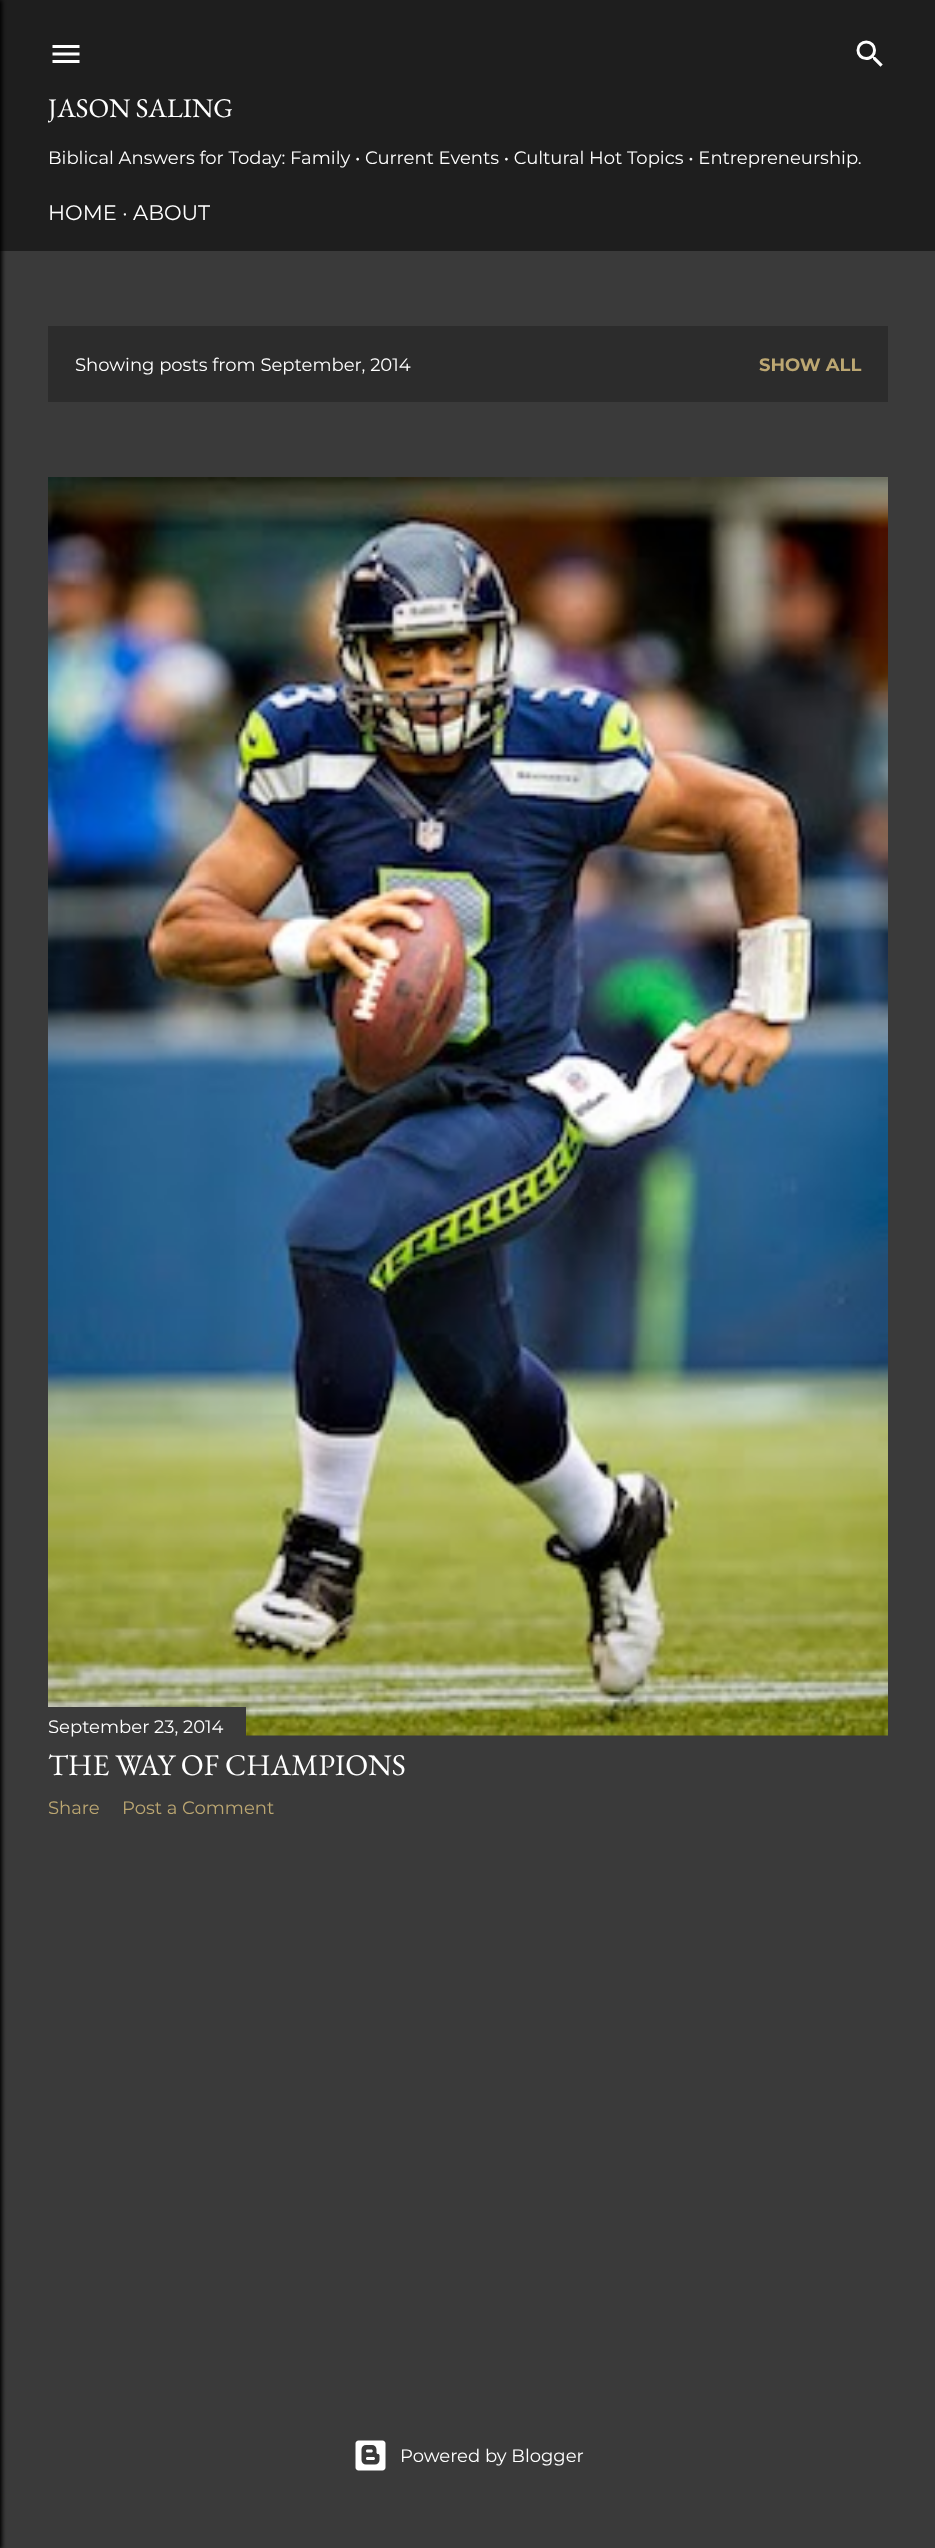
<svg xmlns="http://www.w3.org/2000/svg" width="935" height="2548">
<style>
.a{font:27px EB Garamond;fill:#fff}
.b{font:18px Montserrat;fill:#fff}
.c{font:21px Montserrat;fill:#fff}
.d{font:bold 18px Montserrat;fill:#bca772}
.e{font:30px EB Garamond;fill:#fff}
.f{font:18px Montserrat;fill:#bca772}
</style>
<defs>
<clipPath id="clip1"><path d="M48 90h840v143H48z"/></clipPath>
</defs>
<rect width="100%" height="100%" fill="#3a3a3a"/>
<path fill="#1e1e1e" d="M0 0h935v251H0z"/>
<path fill="#000" filter="blur(2px)" d="M-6 0h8v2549H-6z"/>
<image href="1.png" x="52" y="45" width="28" height="18"/>
<image href="2.png" x="856" y="40" width="27" height="27"/>
<path fill="#2c2c2c" d="M48 326h840v76H48z"/>
<image href="3.png" x="48" y="477" width="840" height="1259"/>
<path fill="#3a3a3a" d="M48 1707h198v29H48z"/>
<image href="4.png" x="355" y="2440" width="31" height="31"/>
<g clip-path="url(#clip1)">
<text class="a" x="48" y="117">JASON SALING</text>
</g>
<text class="b" x="48" y="164">Biblical Answers for Today: Family • Current Events • Cultural Hot Topics • Entrepreneurship.</text>
<text class="c" x="48" y="220">HOME · ABOUT</text>
<text class="b" x="75" y="371">Showing posts from September, 2014</text>
<text class="d" x="759" y="371">SHOW ALL</text>
<text class="b" x="48" y="1733">September 23, 2014</text>
<text class="e" x="48" y="1775">THE WAY OF CHAMPIONS</text>
<text class="f" x="48" y="1814">Share</text>
<text class="f" x="122" y="1814">Post a Comment</text>
<text class="b" x="400" y="2462">Powered by Blogger</text>
</svg>
